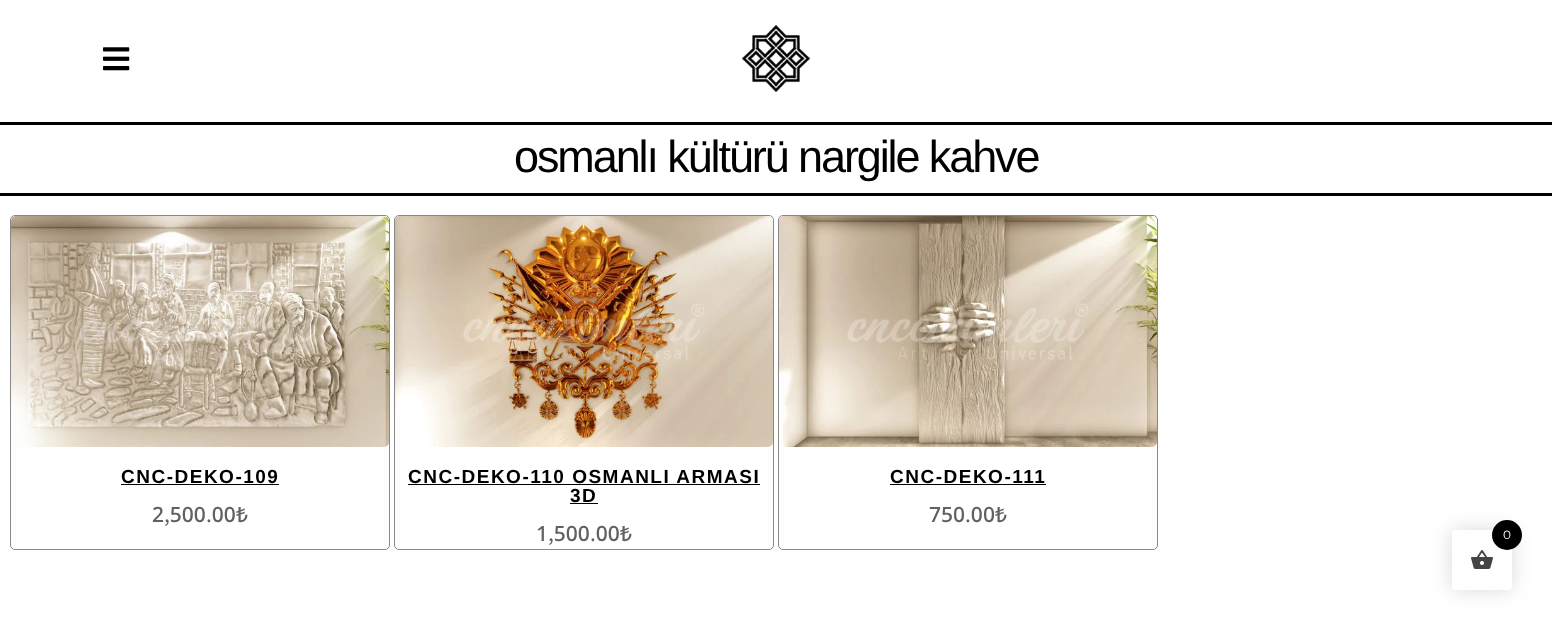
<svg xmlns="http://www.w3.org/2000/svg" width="1552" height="630">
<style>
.a{font:45px Liberation Sans;letter-spacing:-2.1px;fill:#000}
.b{font:bold 19px Liberation Sans;letter-spacing:1.5px;fill:#000}
.c{font:500 21px Noto Traditional Nushu;fill:#616161}
.d{font:500 21px Noto Sans;fill:#616161}
.e{font:100 12px Montserrat;fill:#fff}
</style>
<rect width="100%" height="100%" fill="#fff"/>
<image href="1.png" x="103" y="47" width="27" height="24"/>
<image href="2.png" x="742" y="25" width="68" height="67"/>
<path fill="#000" d="M0 122h1552v74H0z"/>
<path fill="#fff" d="M0 125h1552v68H0z"/>
<rect fill="none" stroke="#888" x="10.5" y="215.5" width="379" height="334" rx="4.5"/>
<image href="3.png" x="11" y="216" width="378" height="231"/>
<path fill="#000" d="M121 484h158v1H121z"/>
<rect fill="none" stroke="#888" x="394.5" y="215.5" width="379" height="334" rx="4.5"/>
<image href="4.png" x="395" y="216" width="378" height="231"/>
<path fill="#000" d="M408 484h352v1H408z"/>
<path fill="#000" d="M570 503h28v1H570z"/>
<rect fill="none" stroke="#888" x="778.5" y="215.5" width="379" height="334" rx="4.5"/>
<image href="5.png" x="779" y="216" width="378" height="231"/>
<path fill="#000" d="M890 484h156v1H890z"/>
<rect fill="#00000026" filter="blur(10px)" x="1452" y="530" width="60" height="60" rx="4"/>
<rect fill="#fff" x="1452" y="530" width="60" height="60" rx="4"/>
<circle fill="#000" cx="1507" cy="535" r="15"/>
<image href="6.png" x="1471" y="550" width="22" height="19"/>
<text class="a" x="514" y="172">osmanlı kültürü nargile kahve</text>
<text class="b" x="121" y="483">CNC-DEKO-109</text>
<text class="c" x="152" y="522">2,500.00</text>
<text class="d" x="236" y="522">₺</text>
<text class="b" x="408" y="483">CNC-DEKO-110 OSMANLI ARMASI</text>
<text class="b" x="570" y="502">3D</text>
<text class="c" x="536" y="541">1,500.00</text>
<text class="d" x="620" y="541">₺</text>
<text class="b" x="890" y="483">CNC-DEKO-111</text>
<text class="c" x="929" y="522">750.00</text>
<text class="d" x="995" y="522">₺</text>
<text class="e" x="1503" y="539">0</text>
</svg>
